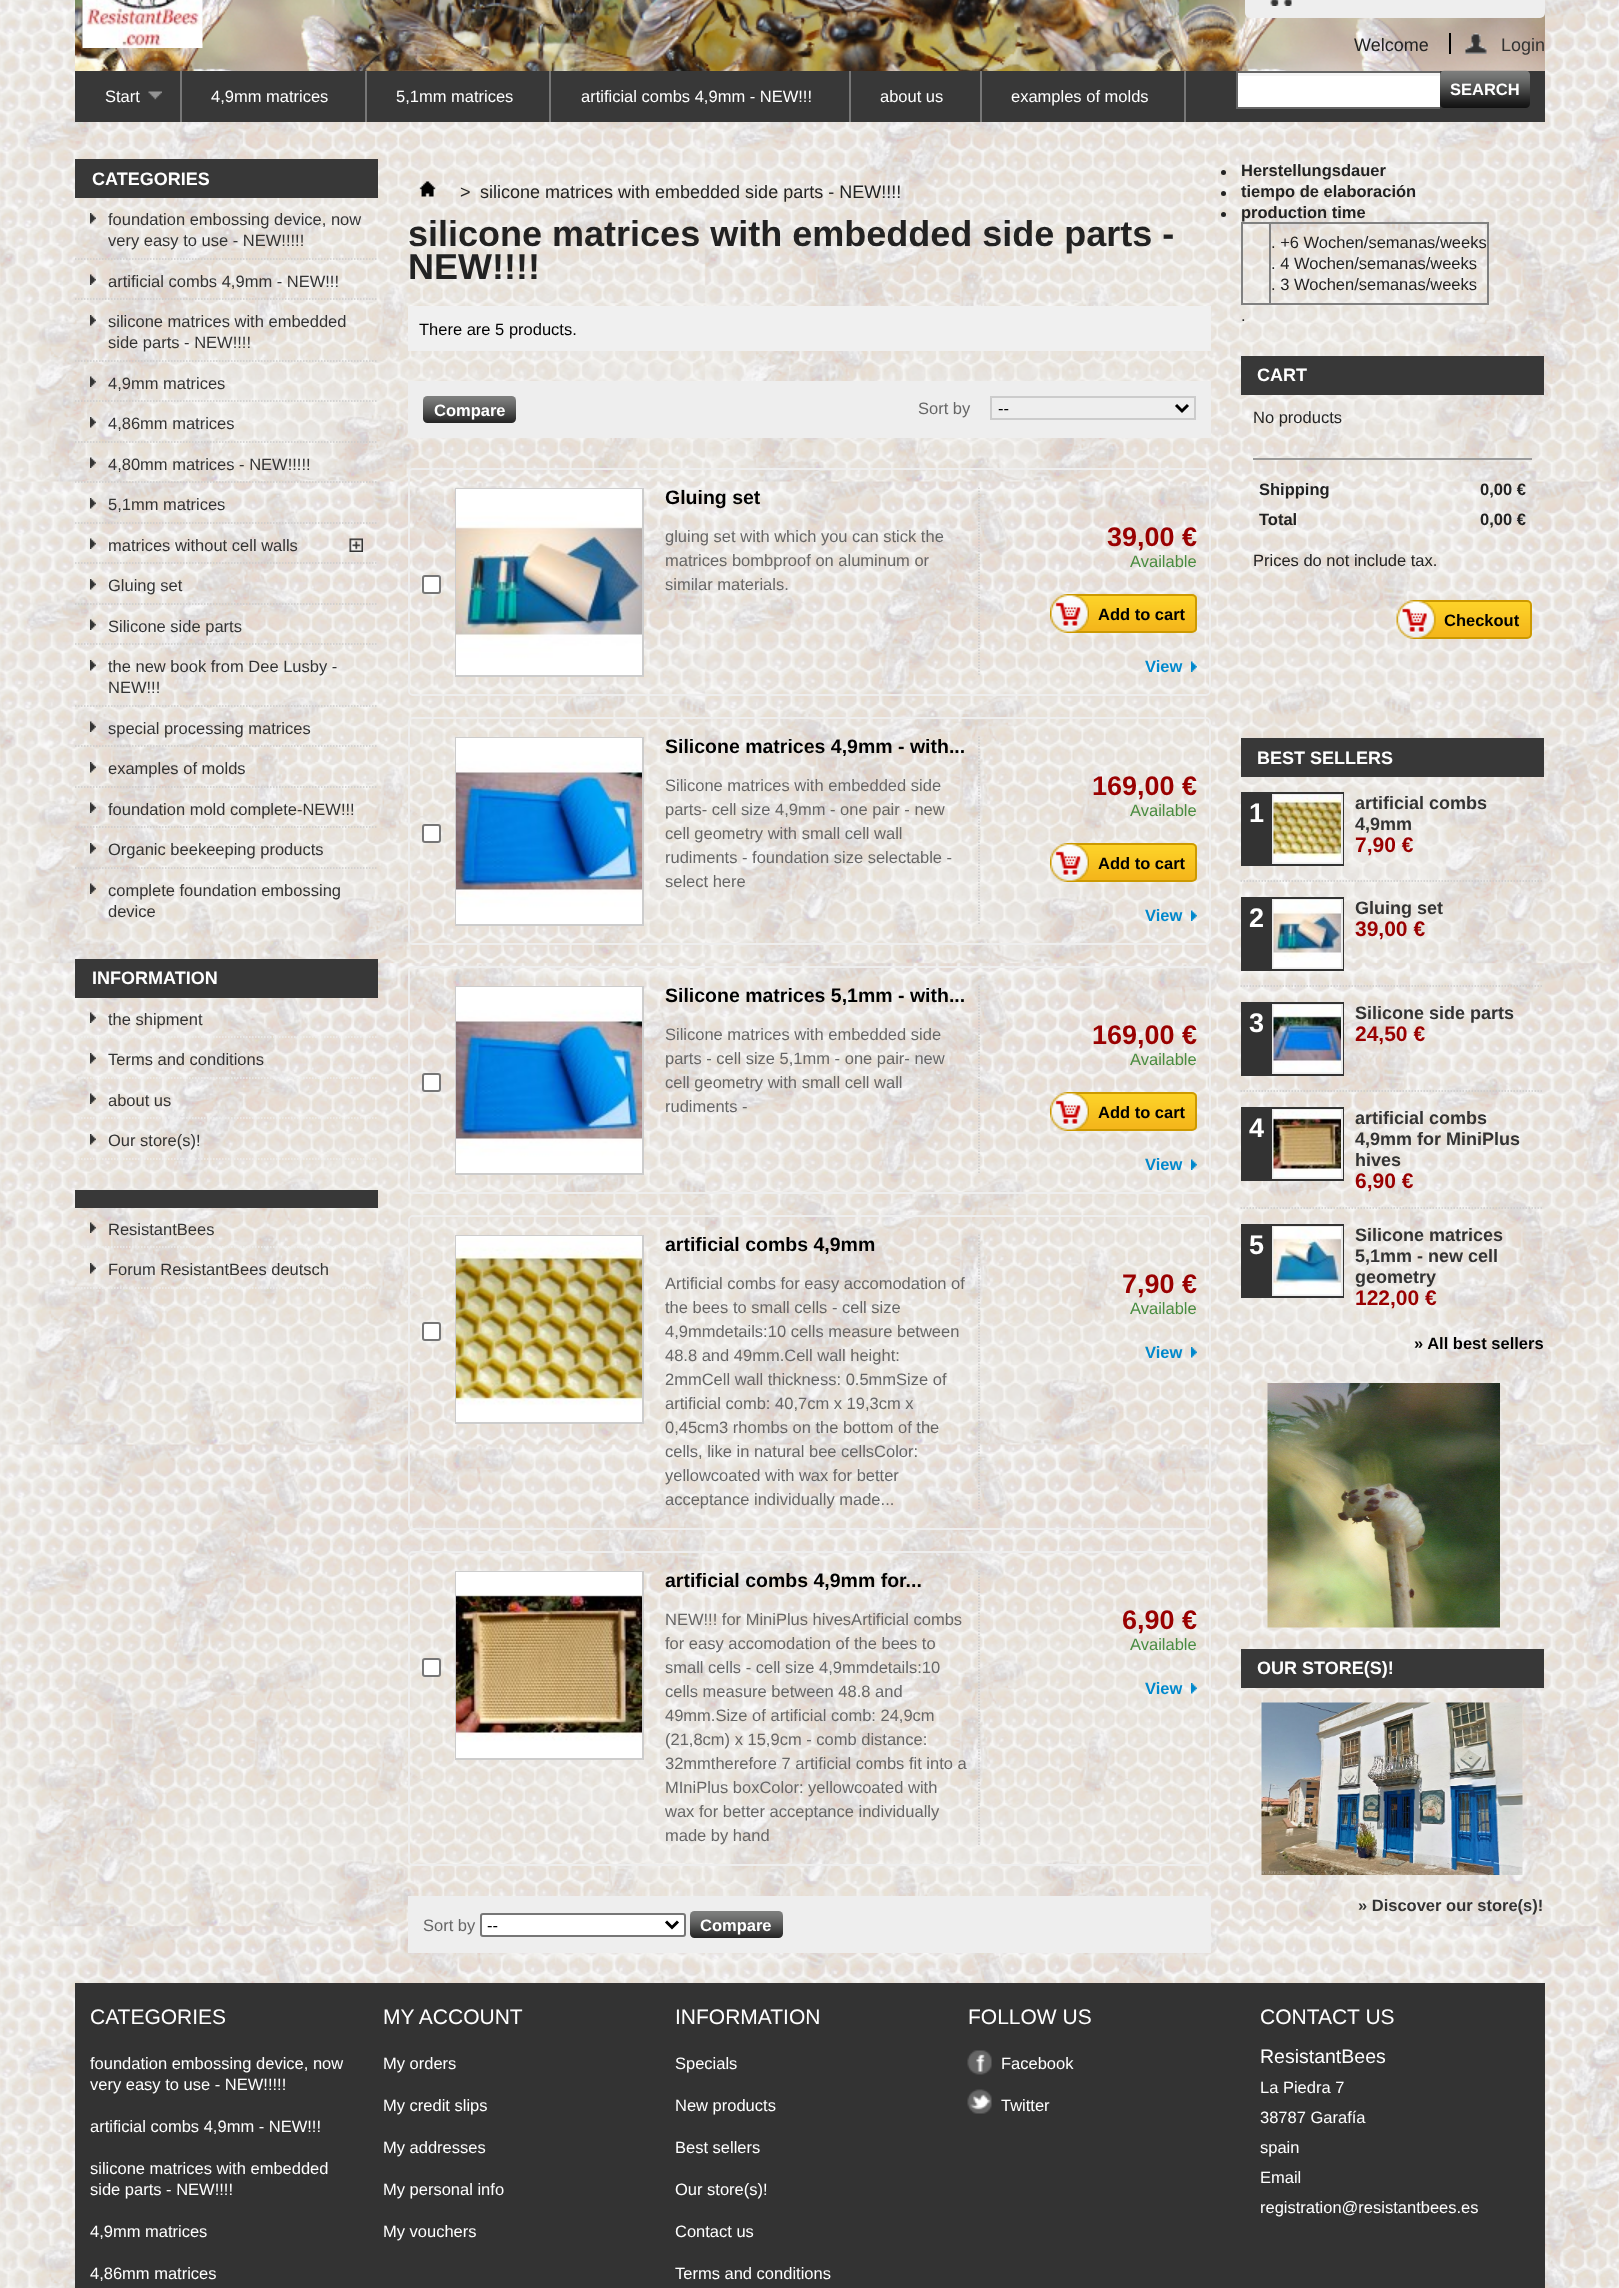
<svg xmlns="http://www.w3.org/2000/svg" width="1619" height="2288">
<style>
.a{font:18px Liberation Sans;fill:#222}
.b{font:18px Liberation Sans;fill:#333}
.c{font:16.5px Liberation Sans;fill:#fff}
.d{font:bold 16.5px Liberation Sans;fill:#fff}
.e{font:bold 18px Liberation Sans;fill:#fff}
.f{font:16.5px Liberation Sans;fill:#333}
.g{font:bold 36px Liberation Sans;fill:#222}
.h{font:16.5px Liberation Sans;fill:#000}
.i{font:16.5px Liberation Sans;fill:#666}
.j{font:bold 19.5px Liberation Sans;fill:#000}
.k{font:bold 27px Liberation Sans;fill:#900}
.l{font:16.5px Liberation Sans;fill:#488c40}
.m{font:bold 16.5px Liberation Sans;fill:#000}
.n{font:bold 16.5px Liberation Sans;fill:#08c}
.o{font:bold 16.5px Liberation Sans;fill:#222}
.p{font:16.5px Liberation Sans;fill:#222}
.q{font:bold 27px Liberation Sans;fill:#fff}
.r{font:bold 18px Liberation Sans;fill:#333}
.s{font:bold 21px Liberation Sans;fill:#900}
.t{font:bold 16.5px Liberation Sans;fill:#333}
.u{font:21px Liberation Sans;fill:#fff}
.v{font:19.5px Liberation Sans;fill:#fff}
</style>
<rect width="100%" height="100%" fill="#fff"/>
<image href="1.png" x="0" y="0" width="1619" height="2288"/>
<image href="2.png" x="75" y="0" width="1470" height="71"/>
<image href="3.png" x="82" y="0" width="121" height="48"/>
<rect fill="#eee" x="1245" y="-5" width="300" height="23" rx="5"/>
<image href="4.png" x="1270" y="0" width="22" height="6"/>
<image href="5.png" x="1465" y="33" width="22" height="21"/>
<path fill="#000" d="M1449 33h2v21H1449z"/>
<path fill="#383838" d="M75 71h1470v51H75z"/>
<path fill="#777" d="M180 71h2v51H180z"/>
<image href="6.png" x="148" y="91" width="14" height="9"/>
<path fill="#777" d="M365 71h2v51H365z"/>
<path fill="#777" d="M549 71h2v51H549z"/>
<path fill="#777" d="M849 71h2v51H849z"/>
<path fill="#777" d="M980 71h2v51H980z"/>
<path fill="#777" d="M1184 71h2v51H1184z"/>
<path fill="#fff" d="M1238 76h202v31H1238z"/>
<path fill="#f5f5f5" d="M1236 73h204v3H1236z"/>
<path fill="#666" d="M1236 71h204v2H1236z"/>
<path fill="#666" d="M1236 107h204v2H1236z"/>
<path fill="#666" d="M1236 71h2v37H1236z"/>
<image href="7.png" x="1440" y="70" width="90" height="38"/>
<path fill="#383838" d="M75 159h303v39H75z"/>
<path fill="none" stroke="#ccc" stroke-width="1.5" stroke-dasharray="1.5 1.5" d="M75 259h303"/>
<image href="8.png" x="90" y="213" width="6" height="11"/>
<path fill="none" stroke="#ccc" stroke-width="1.5" stroke-dasharray="1.5 1.5" d="M75 299h303"/>
<image href="9.png" x="90" y="274" width="6" height="11"/>
<path fill="none" stroke="#ccc" stroke-width="1.5" stroke-dasharray="1.5 1.5" d="M75 361h303"/>
<image href="10.png" x="90" y="315" width="6" height="11"/>
<path fill="none" stroke="#ccc" stroke-width="1.5" stroke-dasharray="1.5 1.5" d="M75 401h303"/>
<image href="11.png" x="90" y="376" width="6" height="11"/>
<path fill="none" stroke="#ccc" stroke-width="1.5" stroke-dasharray="1.5 1.5" d="M75 442h303"/>
<image href="12.png" x="90" y="417" width="6" height="11"/>
<path fill="none" stroke="#ccc" stroke-width="1.5" stroke-dasharray="1.5 1.5" d="M75 482h303"/>
<image href="13.png" x="90" y="457" width="6" height="11"/>
<path fill="none" stroke="#ccc" stroke-width="1.5" stroke-dasharray="1.5 1.5" d="M75 523h303"/>
<image href="14.png" x="90" y="498" width="6" height="11"/>
<path fill="none" stroke="#ccc" stroke-width="1.5" stroke-dasharray="1.5 1.5" d="M75 563h303"/>
<image href="15.png" x="90" y="538" width="6" height="11"/>
<image href="16.png" x="349" y="538" width="14" height="14"/>
<path fill="none" stroke="#ccc" stroke-width="1.5" stroke-dasharray="1.5 1.5" d="M75 604h303"/>
<image href="17.png" x="90" y="579" width="6" height="11"/>
<path fill="none" stroke="#ccc" stroke-width="1.5" stroke-dasharray="1.5 1.5" d="M75 644h303"/>
<image href="18.png" x="90" y="619" width="6" height="11"/>
<path fill="none" stroke="#ccc" stroke-width="1.5" stroke-dasharray="1.5 1.5" d="M75 706h303"/>
<image href="19.png" x="90" y="660" width="6" height="11"/>
<path fill="none" stroke="#ccc" stroke-width="1.5" stroke-dasharray="1.5 1.5" d="M75 746h303"/>
<image href="20.png" x="90" y="721" width="6" height="11"/>
<path fill="none" stroke="#ccc" stroke-width="1.5" stroke-dasharray="1.5 1.5" d="M75 787h303"/>
<image href="21.png" x="90" y="762" width="6" height="11"/>
<path fill="none" stroke="#ccc" stroke-width="1.5" stroke-dasharray="1.5 1.5" d="M75 827h303"/>
<image href="22.png" x="90" y="802" width="6" height="11"/>
<path fill="none" stroke="#ccc" stroke-width="1.5" stroke-dasharray="1.5 1.5" d="M75 868h303"/>
<image href="23.png" x="90" y="843" width="6" height="11"/>
<image href="24.png" x="90" y="883" width="6" height="11"/>
<path fill="#383838" d="M75 959h303v39H75z"/>
<path fill="none" stroke="#eee" stroke-width="1.5" stroke-dasharray="1.5 1.5" d="M75 1037h303"/>
<image href="25.png" x="90" y="1012" width="6" height="11"/>
<path fill="none" stroke="#eee" stroke-width="1.5" stroke-dasharray="1.5 1.5" d="M75 1078h303"/>
<image href="26.png" x="90" y="1053" width="6" height="11"/>
<path fill="none" stroke="#eee" stroke-width="1.5" stroke-dasharray="1.5 1.5" d="M75 1118h303"/>
<image href="27.png" x="90" y="1093" width="6" height="11"/>
<path fill="none" stroke="#eee" stroke-width="1.5" stroke-dasharray="1.5 1.5" d="M75 1159h303"/>
<image href="28.png" x="90" y="1134" width="6" height="11"/>
<path fill="#383838" d="M75 1190h303v18H75z"/>
<path fill="none" stroke="#eee" stroke-width="1.5" stroke-dasharray="1.5 1.5" d="M75 1247h303"/>
<image href="29.png" x="90" y="1222" width="6" height="11"/>
<path fill="none" stroke="#eee" stroke-width="1.5" stroke-dasharray="1.5 1.5" d="M75 1288h303"/>
<image href="30.png" x="90" y="1263" width="6" height="11"/>
<image href="31.png" x="419" y="181" width="17" height="16"/>
<path fill="#f0f0f0" d="M408 306h803v45H408z"/>
<path fill="#eee" d="M408 381h803v57H408z"/>
<image href="32.png" x="423" y="396" width="93" height="27"/>
<path fill="none" stroke="#ccc" stroke-width="2" d="M991 397h204v22H991z"/>
<path fill="none" stroke="#000" stroke-width="3" d="M1176 405l6 6l6-6"/>
<rect fill="none" stroke="#eee" stroke-width="2" x="409" y="469" width="801" height="226" rx="4"/>
<rect fill="#fff" stroke="#767676" stroke-width="2" x="423" y="576" width="17" height="17" rx="2"/>
<path fill="none" stroke="#ccc" stroke-width="1.5" stroke-dasharray="1.5 1.5" d="M979 487.5v189"/>
<path fill="none" stroke="#ccc" stroke-width="2" d="M456 489h187v187H456z"/>
<image href="33.png" x="456" y="489" width="186" height="186"/>
<image href="34.png" x="1076" y="595" width="121" height="37"/>
<rect fill="none" stroke="#c90" stroke-width="2" x="1068" y="595" width="128" height="37" rx="4"/>
<image href="35.png" x="1050" y="594" width="39" height="39"/>
<image href="36.png" x="1191" y="661" width="6" height="11"/>
<rect fill="none" stroke="#eee" stroke-width="2" x="409" y="718" width="801" height="226" rx="4"/>
<rect fill="#fff" stroke="#767676" stroke-width="2" x="423" y="825" width="17" height="17" rx="2"/>
<path fill="none" stroke="#ccc" stroke-width="1.5" stroke-dasharray="1.5 1.5" d="M979 736.5v189"/>
<path fill="none" stroke="#ccc" stroke-width="2" d="M456 738h187v187H456z"/>
<image href="37.png" x="456" y="738" width="186" height="186"/>
<image href="38.png" x="1076" y="844" width="121" height="37"/>
<rect fill="none" stroke="#c90" stroke-width="2" x="1068" y="844" width="128" height="37" rx="4"/>
<image href="39.png" x="1050" y="843" width="39" height="39"/>
<image href="40.png" x="1191" y="910" width="6" height="11"/>
<rect fill="none" stroke="#eee" stroke-width="2" x="409" y="967" width="801" height="226" rx="4"/>
<rect fill="#fff" stroke="#767676" stroke-width="2" x="423" y="1074" width="17" height="17" rx="2"/>
<path fill="none" stroke="#ccc" stroke-width="1.5" stroke-dasharray="1.5 1.5" d="M979 985.5v189"/>
<path fill="none" stroke="#ccc" stroke-width="2" d="M456 987h187v187H456z"/>
<image href="37.png" x="456" y="987" width="186" height="186"/>
<image href="41.png" x="1076" y="1093" width="121" height="37"/>
<rect fill="none" stroke="#c90" stroke-width="2" x="1068" y="1093" width="128" height="37" rx="4"/>
<image href="42.png" x="1050" y="1092" width="39" height="39"/>
<image href="43.png" x="1191" y="1159" width="6" height="11"/>
<rect fill="none" stroke="#eee" stroke-width="2" x="409" y="1216" width="801" height="313" rx="4"/>
<rect fill="#fff" stroke="#767676" stroke-width="2" x="423" y="1323" width="17" height="17" rx="2"/>
<path fill="none" stroke="#ccc" stroke-width="1.5" stroke-dasharray="1.5 1.5" d="M979 1234.5v276"/>
<path fill="none" stroke="#ccc" stroke-width="2" d="M456 1236h187v187H456z"/>
<image href="44.png" x="456" y="1236" width="186" height="186"/>
<image href="45.png" x="1191" y="1347" width="6" height="11"/>
<rect fill="none" stroke="#eee" stroke-width="2" x="409" y="1552" width="801" height="313" rx="4"/>
<rect fill="#fff" stroke="#767676" stroke-width="2" x="423" y="1659" width="17" height="17" rx="2"/>
<path fill="none" stroke="#ccc" stroke-width="1.5" stroke-dasharray="1.5 1.5" d="M979 1570.5v276"/>
<path fill="none" stroke="#ccc" stroke-width="2" d="M456 1572h187v187H456z"/>
<image href="46.png" x="456" y="1572" width="186" height="186"/>
<image href="47.png" x="1191" y="1683" width="6" height="11"/>
<path fill="#eee" d="M408 1896h803v57H408z"/>
<rect fill="#fff" stroke="#767676" stroke-width="2" x="481" y="1914" width="204" height="22" rx="2"/>
<path fill="none" stroke="#000" stroke-width="3" d="M666 1921.5l6 6l6-6"/>
<image href="32.png" x="690" y="1911" width="93" height="27"/>
<circle fill="#222" cx="1223.5" cy="172.5" r="2.5"/>
<circle fill="#222" cx="1223.5" cy="193.5" r="2.5"/>
<circle fill="#222" cx="1223.5" cy="214.5" r="2.5"/>
<path fill="#808080" d="M1241 222h247v2H1241z"/>
<path fill="#808080" d="M1487 222h2v83H1487z"/>
<path fill="#808080" d="M1241 303h247v2H1241z"/>
<path fill="#808080" d="M1241 222h2v83H1241z"/>
<path fill="#808080" d="M1269 222h2v83H1269z"/>
<path fill="#383838" d="M1241 356h303v39H1241z"/>
<path fill="#999" d="M1253 458h279v2H1253z"/>
<image href="48.png" x="1413" y="601" width="119" height="37"/>
<rect fill="none" stroke="#c90" stroke-width="2" x="1414" y="601" width="117" height="37" rx="4"/>
<image href="49.png" x="1396" y="600" width="40" height="39"/>
<path fill="#383838" d="M1241 738h303v39H1241z"/>
<path fill="none" stroke="#ccc" stroke-width="1.5" stroke-dasharray="1.5 1.5" d="M1240.5 881h303"/>
<path fill="#333" d="M1241 792h103v74H1241z"/>
<path fill="none" stroke="#ededed" stroke-width="2" d="M1273 795h69v68H1273z"/>
<image href="50.png" x="1273" y="795" width="68" height="68"/>
<path fill="none" stroke="#ccc" stroke-width="1.5" stroke-dasharray="1.5 1.5" d="M1240.5 986h303"/>
<path fill="#333" d="M1241 897h103v74H1241z"/>
<path fill="none" stroke="#ededed" stroke-width="2" d="M1273 900h69v68H1273z"/>
<image href="51.png" x="1273" y="900" width="68" height="68"/>
<path fill="none" stroke="#ccc" stroke-width="1.5" stroke-dasharray="1.5 1.5" d="M1240.5 1091h303"/>
<path fill="#333" d="M1241 1002h103v74H1241z"/>
<path fill="none" stroke="#ededed" stroke-width="2" d="M1273 1005h69v68H1273z"/>
<image href="52.png" x="1273" y="1005" width="68" height="68"/>
<path fill="none" stroke="#ccc" stroke-width="1.5" stroke-dasharray="1.5 1.5" d="M1240.5 1208h303"/>
<path fill="#333" d="M1241 1107h103v74H1241z"/>
<path fill="none" stroke="#ededed" stroke-width="2" d="M1273 1110h69v68H1273z"/>
<image href="53.png" x="1273" y="1110" width="68" height="68"/>
<path fill="#333" d="M1241 1224h103v74H1241z"/>
<path fill="none" stroke="#ededed" stroke-width="2" d="M1273 1227h69v68H1273z"/>
<image href="54.png" x="1273" y="1227" width="68" height="68"/>
<image href="55.png" x="1267" y="1383" width="233" height="245"/>
<path fill="#383838" d="M1241 1649h303v39H1241z"/>
<image href="56.png" x="1261" y="1702" width="262" height="173"/>
<path fill="#333" d="M75 1983h1470v305H75z"/>
<image href="57.png" x="967" y="2050" width="25" height="25"/>
<image href="58.png" x="967" y="2089" width="25" height="25"/>
<text class="a" x="1354" y="51">Welcome</text>
<text class="b" x="1501" y="51">Login</text>
<text class="c" x="105" y="102">Start</text>
<text class="c" x="211" y="102">4,9mm matrices</text>
<text class="c" x="396" y="102">5,1mm matrices</text>
<text class="c" x="581" y="102">artificial combs 4,9mm - NEW!!!</text>
<text class="c" x="880" y="102">about us</text>
<text class="c" x="1011" y="102">examples of molds</text>
<text class="d" x="1450" y="95">SEARCH</text>
<text class="e" x="92" y="185">CATEGORIES</text>
<text class="f" x="108" y="225">foundation embossing device, now</text>
<text class="f" x="108" y="246">very easy to use - NEW!!!!!</text>
<text class="f" x="108" y="287">artificial combs 4,9mm - NEW!!!</text>
<text class="f" x="108" y="327">silicone matrices with embedded</text>
<text class="f" x="108" y="348">side parts - NEW!!!!</text>
<text class="f" x="108" y="389">4,9mm matrices</text>
<text class="f" x="108" y="429">4,86mm matrices</text>
<text class="f" x="108" y="470">4,80mm matrices - NEW!!!!!</text>
<text class="f" x="108" y="510">5,1mm matrices</text>
<text class="f" x="108" y="551">matrices without cell walls</text>
<text class="f" x="108" y="591">Gluing set</text>
<text class="f" x="108" y="632">Silicone side parts</text>
<text class="f" x="108" y="672">the new book from Dee Lusby -</text>
<text class="f" x="108" y="693">NEW!!!</text>
<text class="f" x="108" y="734">special processing matrices</text>
<text class="f" x="108" y="774">examples of molds</text>
<text class="f" x="108" y="815">foundation mold complete-NEW!!!</text>
<text class="f" x="108" y="855">Organic beekeeping products</text>
<text class="f" x="108" y="896">complete foundation embossing</text>
<text class="f" x="108" y="917">device</text>
<text class="e" x="92" y="984">INFORMATION</text>
<text class="f" x="108" y="1025">the shipment</text>
<text class="f" x="108" y="1065">Terms and conditions</text>
<text class="f" x="108" y="1106">about us</text>
<text class="f" x="108" y="1146">Our store(s)!</text>
<text class="f" x="108" y="1235">ResistantBees</text>
<text class="f" x="108" y="1275">Forum ResistantBees deutsch</text>
<text class="a" x="460" y="198">&gt;</text>
<text class="a" x="480" y="198">silicone matrices with embedded side parts - NEW!!!!</text>
<text class="g" x="408" y="246">silicone matrices with embedded side parts -</text>
<text class="g" x="408" y="279">NEW!!!!</text>
<text class="h" x="419" y="335">There are 5 products.</text>
<text class="d" x="434" y="416">Compare</text>
<text class="i" x="918" y="414">Sort by</text>
<text class="h" x="998" y="414">--</text>
<text class="j" x="665" y="504">Gluing set</text>
<text class="i" x="665" y="542">gluing set with which you can stick the</text>
<text class="i" x="665" y="566">matrices bombproof on aluminum or</text>
<text class="i" x="665" y="590">similar materials.</text>
<text class="k" x="1107" y="546">39,00 €</text>
<text class="l" x="1130" y="567">Available</text>
<text class="m" x="1098" y="620">Add to cart</text>
<text class="n" x="1145" y="672">View</text>
<text class="j" x="665" y="753">Silicone matrices 4,9mm - with...</text>
<text class="i" x="665" y="791">Silicone matrices with embedded side</text>
<text class="i" x="665" y="815">parts- cell size 4,9mm - one pair - new</text>
<text class="i" x="665" y="839">cell geometry with small cell wall</text>
<text class="i" x="665" y="863">rudiments - foundation size selectable -</text>
<text class="i" x="665" y="887">select here</text>
<text class="k" x="1092" y="795">169,00 €</text>
<text class="l" x="1130" y="816">Available</text>
<text class="m" x="1098" y="869">Add to cart</text>
<text class="n" x="1145" y="921">View</text>
<text class="j" x="665" y="1002">Silicone matrices 5,1mm - with...</text>
<text class="i" x="665" y="1040">Silicone matrices with embedded side</text>
<text class="i" x="665" y="1064">parts - cell size 5,1mm - one pair- new</text>
<text class="i" x="665" y="1088">cell geometry with small cell wall</text>
<text class="i" x="665" y="1112">rudiments -</text>
<text class="k" x="1092" y="1044">169,00 €</text>
<text class="l" x="1130" y="1065">Available</text>
<text class="m" x="1098" y="1118">Add to cart</text>
<text class="n" x="1145" y="1170">View</text>
<text class="j" x="665" y="1251">artificial combs 4,9mm</text>
<text class="i" x="665" y="1289">Artificial combs for easy accomodation of</text>
<text class="i" x="665" y="1313">the bees to small cells - cell size</text>
<text class="i" x="665" y="1337">4,9mmdetails:10 cells measure between</text>
<text class="i" x="665" y="1361">48.8 and 49mm.Cell wall height:</text>
<text class="i" x="665" y="1385">2mmCell wall thickness: 0.5mmSize of</text>
<text class="i" x="665" y="1409">artificial comb: 40,7cm x 19,3cm x</text>
<text class="i" x="665" y="1433">0,45cm3 rhombs on the bottom of the</text>
<text class="i" x="665" y="1457">cells, like in natural bee cellsColor:</text>
<text class="i" x="665" y="1481">yellowcoated with wax for better</text>
<text class="i" x="665" y="1505">acceptance individually made...</text>
<text class="k" x="1122" y="1293">7,90 €</text>
<text class="l" x="1130" y="1314">Available</text>
<text class="n" x="1145" y="1358">View</text>
<text class="j" x="665" y="1587">artificial combs 4,9mm for...</text>
<text class="i" x="665" y="1625">NEW!!! for MiniPlus hivesArtificial combs</text>
<text class="i" x="665" y="1649">for easy accomodation of the bees to</text>
<text class="i" x="665" y="1673">small cells - cell size 4,9mmdetails:10</text>
<text class="i" x="665" y="1697">cells measure between 48.8 and</text>
<text class="i" x="665" y="1721">49mm.Size of artificial comb: 24,9cm</text>
<text class="i" x="665" y="1745">(21,8cm) x 15,9cm - comb distance:</text>
<text class="i" x="665" y="1769">32mmtherefore 7 artificial combs fit into a</text>
<text class="i" x="665" y="1793">MIniPlus boxColor: yellowcoated with</text>
<text class="i" x="665" y="1817">wax for better acceptance individually</text>
<text class="i" x="665" y="1841">made by hand</text>
<text class="k" x="1122" y="1629">6,90 €</text>
<text class="l" x="1130" y="1650">Available</text>
<text class="n" x="1145" y="1694">View</text>
<text class="i" x="423" y="1931">Sort by</text>
<text class="h" x="487" y="1931">--</text>
<text class="d" x="700" y="1931">Compare</text>
<text class="o" x="1241" y="176">Herstellungsdauer</text>
<text class="o" x="1241" y="197">tiempo de elaboración</text>
<text class="o" x="1241" y="218">production time</text>
<text class="p" x="1271" y="248">. +6 Wochen/semanas/weeks</text>
<text class="p" x="1271" y="269">. 4 Wochen/semanas/weeks</text>
<text class="p" x="1271" y="290">. 3 Wochen/semanas/weeks</text>
<text class="p" x="1241" y="321">.</text>
<text class="e" x="1257" y="381">CART</text>
<text class="p" x="1253" y="423">No products</text>
<text class="o" x="1259" y="495">Shipping</text>
<text class="o" x="1480" y="495">0,00 €</text>
<text class="o" x="1259" y="525">Total</text>
<text class="o" x="1480" y="525">0,00 €</text>
<text class="p" x="1253" y="566">Prices do not include tax.</text>
<text class="m" x="1444" y="626">Checkout</text>
<text class="e" x="1257" y="764">BEST SELLERS</text>
<text class="q" x="1249" y="822">1</text>
<text class="r" x="1355" y="809">artificial combs</text>
<text class="r" x="1355" y="830">4,9mm</text>
<text class="s" x="1355" y="852">7,90 €</text>
<text class="q" x="1249" y="927">2</text>
<text class="r" x="1355" y="914">Gluing set</text>
<text class="s" x="1355" y="936">39,00 €</text>
<text class="q" x="1249" y="1032">3</text>
<text class="r" x="1355" y="1019">Silicone side parts</text>
<text class="s" x="1355" y="1041">24,50 €</text>
<text class="q" x="1249" y="1137">4</text>
<text class="r" x="1355" y="1124">artificial combs</text>
<text class="r" x="1355" y="1145">4,9mm for MiniPlus</text>
<text class="r" x="1355" y="1166">hives</text>
<text class="s" x="1355" y="1188">6,90 €</text>
<text class="q" x="1249" y="1254">5</text>
<text class="r" x="1355" y="1241">Silicone matrices</text>
<text class="r" x="1355" y="1262">5,1mm - new cell</text>
<text class="r" x="1355" y="1283">geometry</text>
<text class="s" x="1355" y="1305">122,00 €</text>
<text class="m" x="1414" y="1349">» All best sellers</text>
<text class="e" x="1257" y="1674">OUR STORE(S)!</text>
<text class="t" x="1358" y="1911">» Discover our store(s)!</text>
<text class="u" x="90" y="2024">CATEGORIES</text>
<text class="c" x="90" y="2069">foundation embossing device, now</text>
<text class="c" x="90" y="2090">very easy to use - NEW!!!!!</text>
<text class="c" x="90" y="2132">artificial combs 4,9mm - NEW!!!</text>
<text class="c" x="90" y="2174">silicone matrices with embedded</text>
<text class="c" x="90" y="2195">side parts - NEW!!!!</text>
<text class="c" x="90" y="2237">4,9mm matrices</text>
<text class="c" x="90" y="2279">4,86mm matrices</text>
<text class="u" x="383" y="2024">MY ACCOUNT</text>
<text class="c" x="383" y="2069">My orders</text>
<text class="c" x="383" y="2111">My credit slips</text>
<text class="c" x="383" y="2153">My addresses</text>
<text class="c" x="383" y="2195">My personal info</text>
<text class="c" x="383" y="2237">My vouchers</text>
<text class="u" x="675" y="2024">INFORMATION</text>
<text class="c" x="675" y="2069">Specials</text>
<text class="c" x="675" y="2111">New products</text>
<text class="c" x="675" y="2153">Best sellers</text>
<text class="c" x="675" y="2195">Our store(s)!</text>
<text class="c" x="675" y="2237">Contact us</text>
<text class="c" x="675" y="2279">Terms and conditions</text>
<text class="u" x="968" y="2024">FOLLOW US</text>
<text class="c" x="1001" y="2069">Facebook</text>
<text class="c" x="1001" y="2111">Twitter</text>
<text class="u" x="1260" y="2024">CONTACT US</text>
<text class="v" x="1260" y="2063">ResistantBees</text>
<text class="c" x="1260" y="2093">La Piedra 7</text>
<text class="c" x="1260" y="2123">38787 Garafía</text>
<text class="c" x="1260" y="2153">spain</text>
<text class="c" x="1260" y="2183">Email</text>
<text class="c" x="1260" y="2213">registration@resistantbees.es</text>
</svg>
